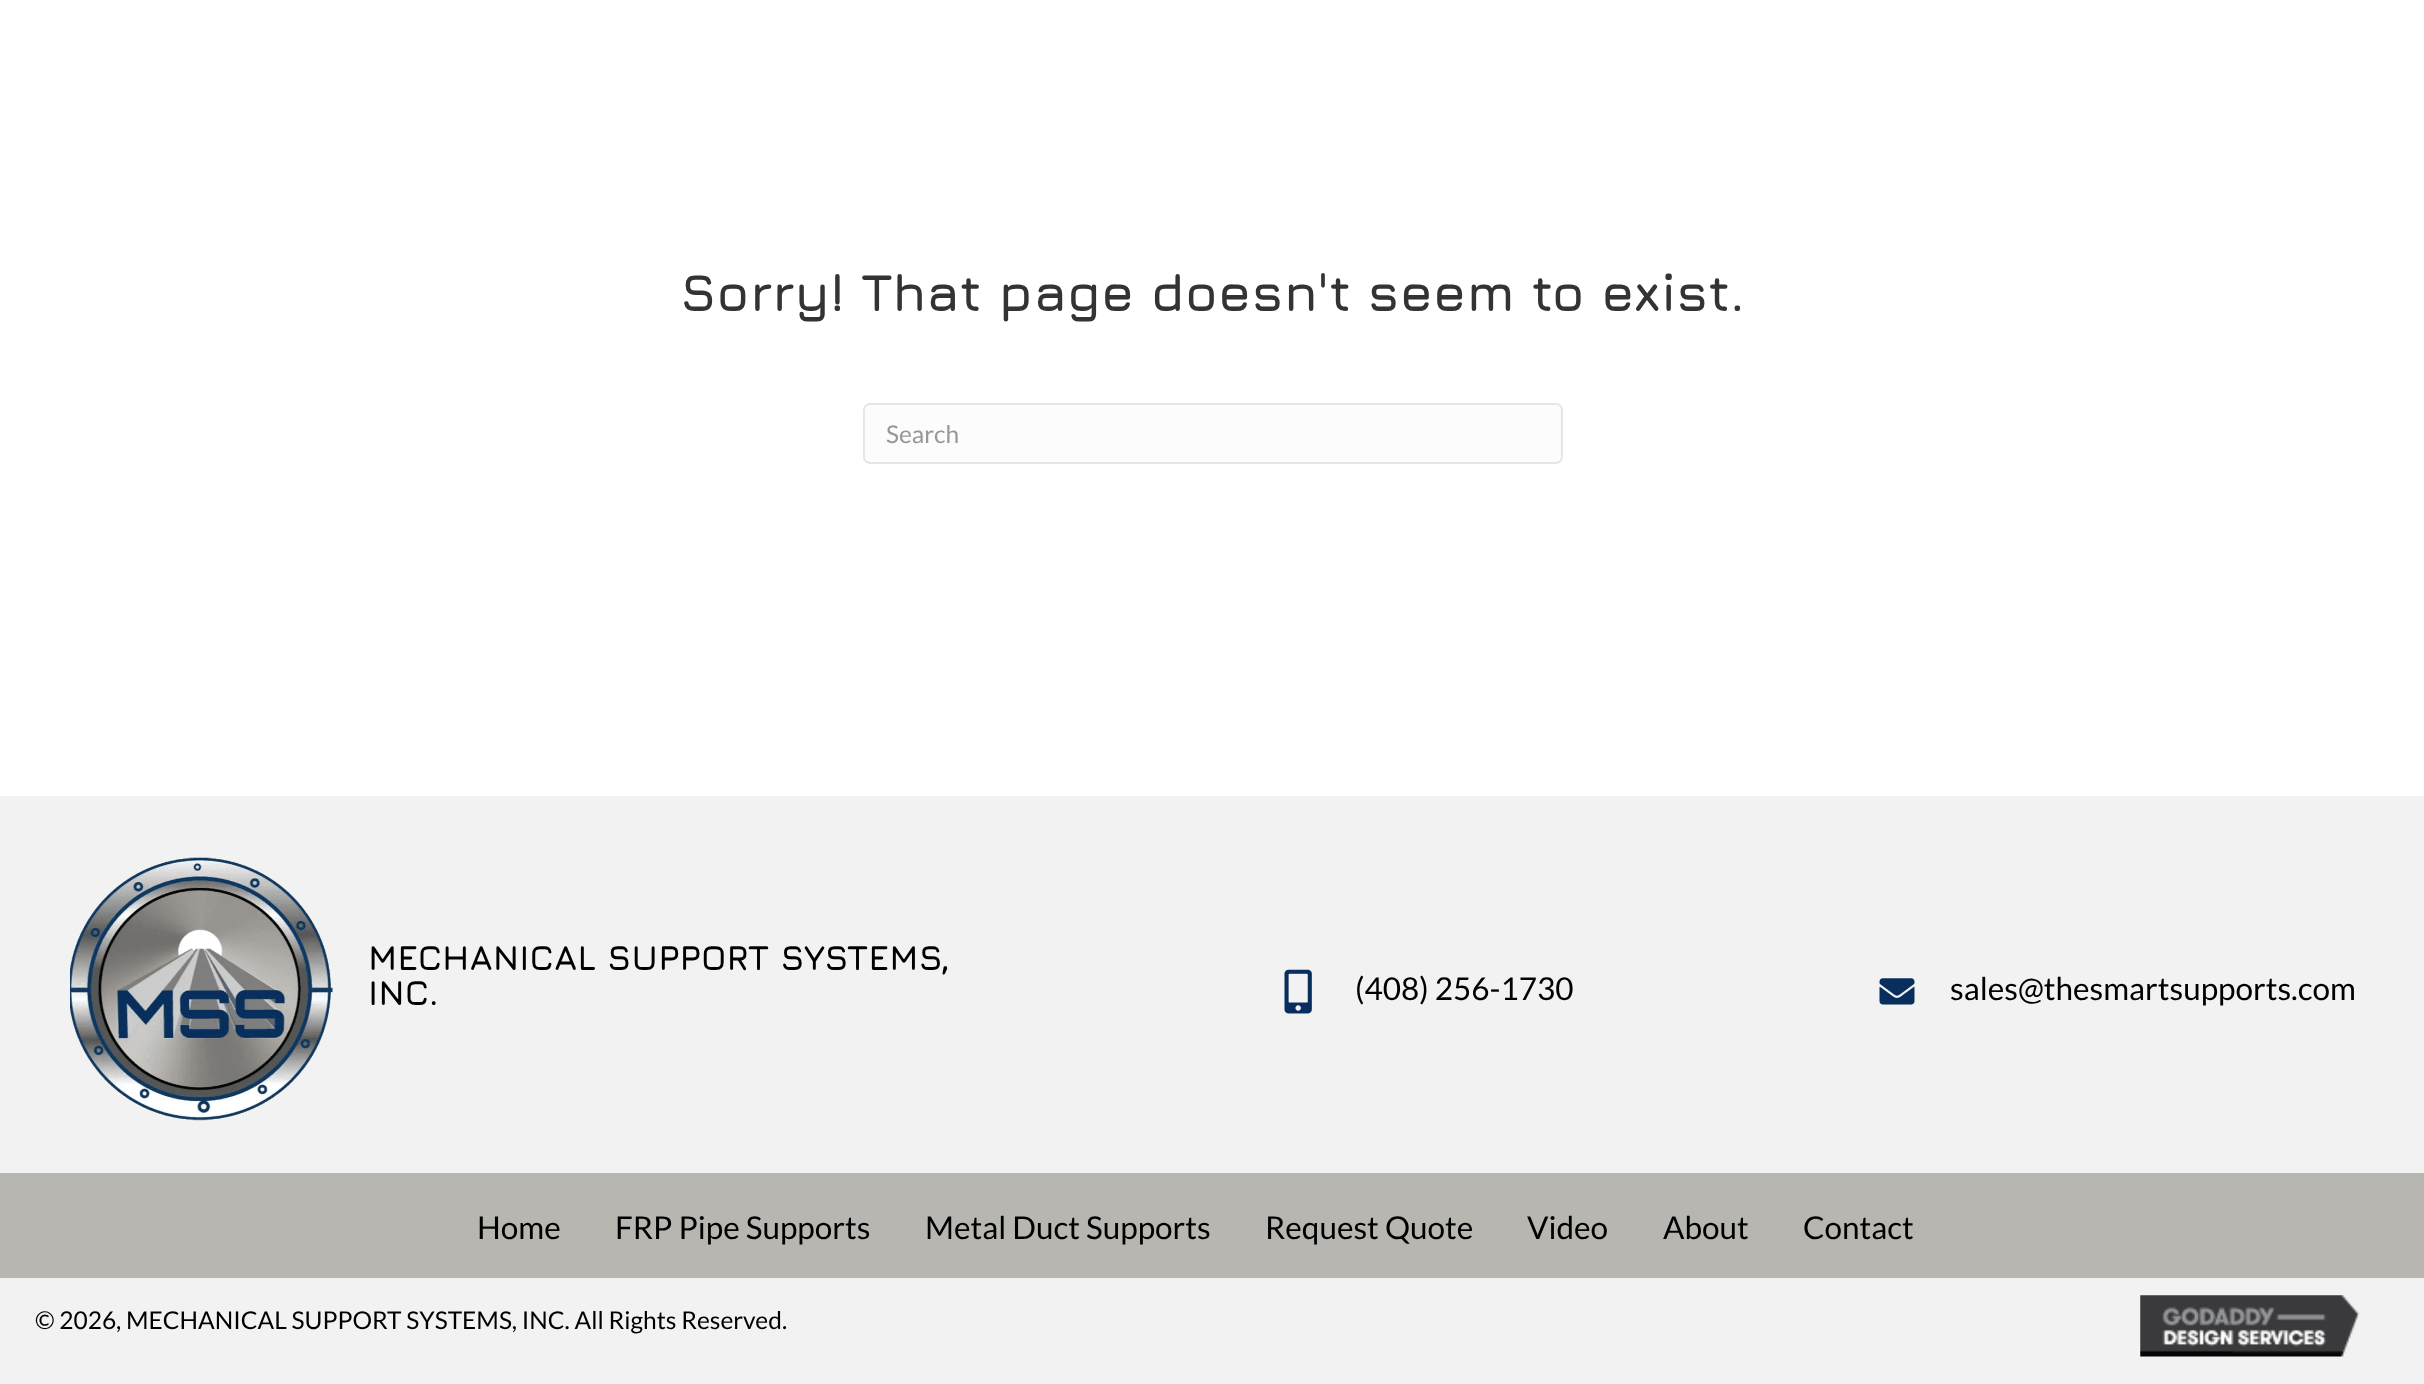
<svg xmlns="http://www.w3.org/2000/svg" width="2424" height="1384">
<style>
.a{font:300 52.5px Jura;fill:#333}
.b{font:24.5px Lato;fill:#979797}
.c{font:300 35px Jura;fill:#000}
.d{font:31.5px Lato;fill:#000}
.e{font:24.5px Lato;fill:#000}
</style>
<rect width="100%" height="100%" fill="#f2f2f2"/>
<path fill="#fff" d="M0 0h2424v796H0z"/>
<rect fill="#fcfcfc" stroke="#e6e6e6" stroke-width="2" x="864" y="404" width="698" height="59" rx="6"/>
<image href="1.png" x="70" y="857" width="263" height="264"/>
<image href="2.png" x="1284" y="969" width="28" height="45"/>
<image href="3.png" x="1879" y="978" width="36" height="27"/>
<path fill="#b7b6b1" d="M0 1173h2424v105H0z"/>
<image href="4.png" x="2140" y="1295" width="220" height="62"/>
<text class="a" x="680" y="311">Sorry! That page doesn't seem to exist.</text>
<text class="b" x="886" y="443">Search</text>
<text class="c" x="368" y="970">MECHANICAL SUPPORT SYSTEMS,</text>
<text class="c" x="368" y="1005">INC.</text>
<text class="d" x="1355" y="1000">(408) 256-1730</text>
<text class="d" x="1950" y="1000">sales@thesmartsupports.com</text>
<text class="d" x="477" y="1239">Home</text>
<text class="d" x="615" y="1239">FRP Pipe Supports</text>
<text class="d" x="925" y="1239">Metal Duct Supports</text>
<text class="d" x="1265" y="1239">Request Quote</text>
<text class="d" x="1527" y="1239">Video</text>
<text class="d" x="1663" y="1239">About</text>
<text class="d" x="1803" y="1239">Contact</text>
<text class="e" x="35" y="1329">© 2026, MECHANICAL SUPPORT SYSTEMS, INC. All Rights Reserved.</text>
</svg>
